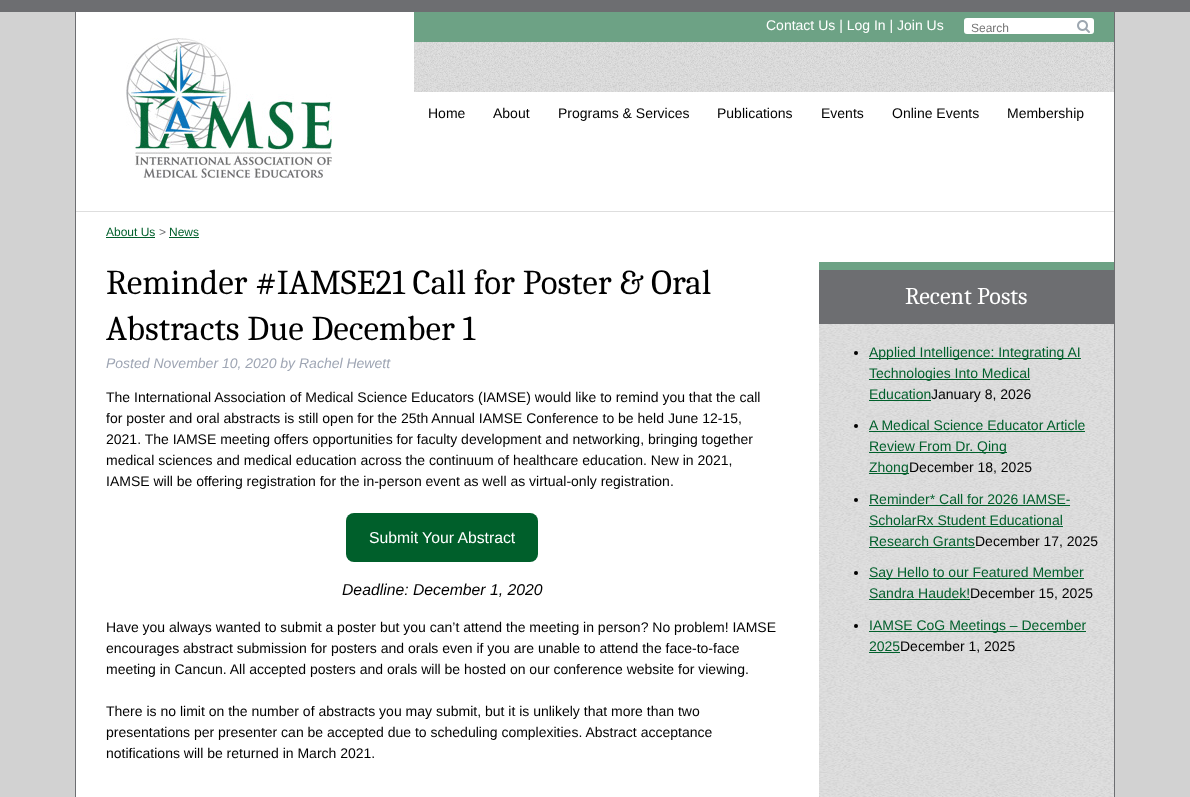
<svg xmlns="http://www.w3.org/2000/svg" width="1190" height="797">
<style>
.a{font:14px Liberation Sans;fill:#fff}
.b{font:12px Liberation Sans;fill:#757575}
.c{font:14px Liberation Sans;fill:#000}
.d{font:12px Liberation Sans;fill:#005f2b}
.e{font:12px Liberation Sans;fill:#6d6e71}
.f{font:35px Caladea;fill:#000}
.g{font:italic 14px Liberation Sans;fill:#9fa6b4}
.h{font:15.75px Liberation Sans;fill:#fff}
.i{font:italic 15.75px Liberation Sans;fill:#000}
.j{font:24px Caladea;fill:#fff}
.k{font:14px Liberation Sans;fill:#005f2b}
</style>
<rect width="100%" height="100%" fill="#d2d2d2"/>
<path fill="#6d6e71" d="M0 0h1190v12H0z"/>
<path fill="#fff" d="M76 12h1038v785H76z"/>
<path fill="#6d6e71" d="M1114 12h1v785H1114z"/>
<path fill="#6d6e71" d="M75 12h1v785H75z"/>
<path fill="#dedede" d="M76 211h1038v1H76z"/>
<image href="1.png" x="126" y="38" width="206" height="140"/>
<path fill="#6da285" d="M414 12h700v30H414z"/>
<rect fill="#fff" x="964" y="18" width="130" height="16" rx="3"/>
<image href="2.png" x="1077" y="20" width="13" height="13"/>
<image href="3.png" x="414" y="42" width="700" height="50"/>
<path fill="#005f2b" d="M106 237h49v1H106z"/>
<path fill="#005f2b" d="M169 237h30v1H169z"/>
<rect fill="#005f2b" x="346" y="513" width="192" height="49" rx="8"/>
<image href="4.png" x="819" y="324" width="295" height="473"/>
<path fill="#6d6e71" d="M819 270h295v54H819z"/>
<path fill="#6da285" d="M819 262h295v8H819z"/>
<circle fill="#000" cx="856" cy="353" r="2"/>
<path fill="#005f2b" d="M869 358h212v1H869z"/>
<path fill="#005f2b" d="M869 379h161v1H869z"/>
<path fill="#005f2b" d="M869 400h62v1H869z"/>
<circle fill="#000" cx="856" cy="426" r="2"/>
<path fill="#005f2b" d="M869 431h216v1H869z"/>
<path fill="#005f2b" d="M869 452h138v1H869z"/>
<path fill="#005f2b" d="M869 473h40v1H869z"/>
<circle fill="#000" cx="856" cy="500" r="2"/>
<path fill="#005f2b" d="M869 505h201v1H869z"/>
<path fill="#005f2b" d="M869 526h194v1H869z"/>
<path fill="#005f2b" d="M869 547h106v1H869z"/>
<circle fill="#000" cx="856" cy="573" r="2"/>
<path fill="#005f2b" d="M869 578h215v1H869z"/>
<path fill="#005f2b" d="M869 599h101v1H869z"/>
<circle fill="#000" cx="856" cy="626" r="2"/>
<path fill="#005f2b" d="M869 631h217v1H869z"/>
<path fill="#005f2b" d="M869 652h31v1H869z"/>
<text class="a" x="766" y="30">Contact Us | Log In | Join Us</text>
<text class="b" x="971" y="32">Search</text>
<text class="c" x="428" y="118">Home</text>
<text class="c" x="493" y="118">About</text>
<text class="c" x="558" y="118">Programs &amp; Services</text>
<text class="c" x="717" y="118">Publications</text>
<text class="c" x="821" y="118">Events</text>
<text class="c" x="892" y="118">Online Events</text>
<text class="c" x="1007" y="118">Membership</text>
<text class="d" x="106" y="236">About Us</text>
<text class="e" x="159" y="236">&gt;</text>
<text class="d" x="169" y="236">News</text>
<text class="f" x="106" y="294">Reminder #IAMSE21 Call for Poster &amp; Oral</text>
<text class="f" x="106" y="340">Abstracts Due December 1</text>
<text class="g" x="106" y="368">Posted November 10, 2020 by Rachel Hewett</text>
<text class="c" x="106" y="402">The International Association of Medical Science Educators (IAMSE) would like to remind you that the call</text>
<text class="c" x="106" y="423">for poster and oral abstracts is still open for the 25th Annual IAMSE Conference to be held June 12-15,</text>
<text class="c" x="106" y="444">2021. The IAMSE meeting offers opportunities for faculty development and networking, bringing together</text>
<text class="c" x="106" y="465">medical sciences and medical education across the continuum of healthcare education. New in 2021,</text>
<text class="c" x="106" y="486">IAMSE will be offering registration for the in-person event as well as virtual-only registration.</text>
<text class="h" x="369" y="543">Submit Your Abstract</text>
<text class="i" x="342" y="595">Deadline: December 1, 2020</text>
<text class="c" x="106" y="632">Have you always wanted to submit a poster but you can’t attend the meeting in person? No problem! IAMSE</text>
<text class="c" x="106" y="653">encourages abstract submission for posters and orals even if you are unable to attend the face-to-face</text>
<text class="c" x="106" y="674">meeting in Cancun. All accepted posters and orals will be hosted on our conference website for viewing.</text>
<text class="c" x="106" y="716">There is no limit on the number of abstracts you may submit, but it is unlikely that more than two</text>
<text class="c" x="106" y="737">presentations per presenter can be accepted due to scheduling complexities. Abstract acceptance</text>
<text class="c" x="106" y="758">notifications will be returned in March 2021.</text>
<text class="j" x="905" y="304">Recent Posts</text>
<text class="k" x="869" y="357">Applied Intelligence: Integrating AI</text>
<text class="k" x="869" y="378">Technologies Into Medical</text>
<text class="k" x="869" y="399">Education</text>
<text class="c" x="931" y="399">January 8, 2026</text>
<text class="k" x="869" y="430">A Medical Science Educator Article</text>
<text class="k" x="869" y="451">Review From Dr. Qing</text>
<text class="k" x="869" y="472">Zhong</text>
<text class="c" x="909" y="472">December 18, 2025</text>
<text class="k" x="869" y="504">Reminder* Call for 2026 IAMSE-</text>
<text class="k" x="869" y="525">ScholarRx Student Educational</text>
<text class="k" x="869" y="546">Research Grants</text>
<text class="c" x="975" y="546">December 17, 2025</text>
<text class="k" x="869" y="577">Say Hello to our Featured Member</text>
<text class="k" x="869" y="598">Sandra Haudek!</text>
<text class="c" x="970" y="598">December 15, 2025</text>
<text class="k" x="869" y="630">IAMSE CoG Meetings – December</text>
<text class="k" x="869" y="651">2025</text>
<text class="c" x="900" y="651">December 1, 2025</text>
</svg>
